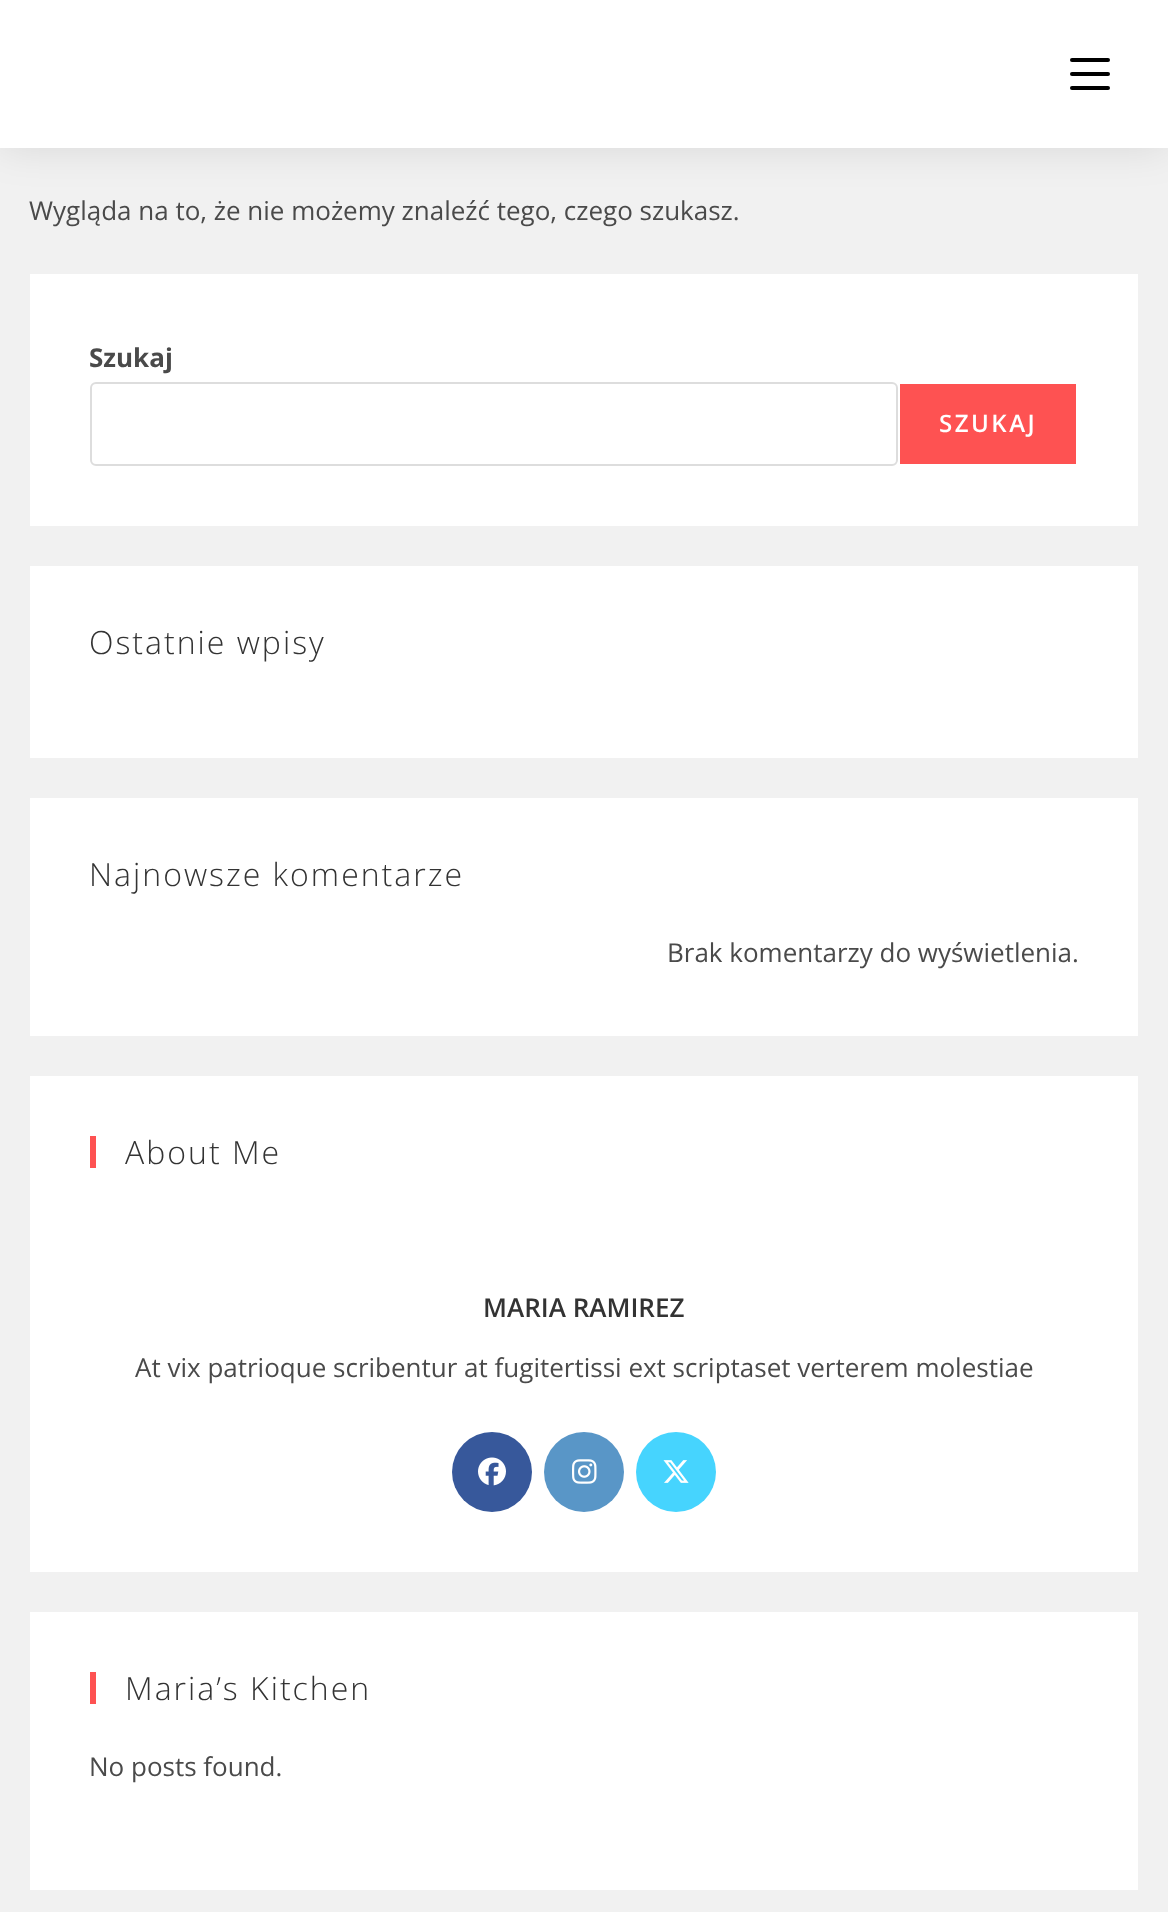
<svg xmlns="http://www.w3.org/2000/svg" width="1168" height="1912">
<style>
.a{font:26px Open Sans;fill:#4a4a4a}
.b{font:bold 26px Open Sans;fill:#4a4a4a}
.c{font:600 24px Open Sans;letter-spacing:2.5px;fill:#fff}
.d{font:300 32px Open Sans;letter-spacing:2px;fill:#333}
.e{font:600 26px Open Sans;fill:#333}
</style>
<rect width="100%" height="100%" fill="#f1f1f1"/>
<path fill="#0000001a" filter="blur(20px)" d="M0 0h1168v148H0z"/>
<path fill="#fff" d="M0 0h1168v148H0z"/>
<rect fill="#000" x="1070" y="72" width="40" height="4" rx="2"/>
<rect fill="#000" x="1070" y="58" width="40" height="4" rx="2"/>
<rect fill="#000" x="1070" y="86" width="40" height="4" rx="2"/>
<path fill="#fff" d="M30 274h1108v252H30z"/>
<rect fill="none" stroke="#ddd" stroke-width="2" x="91" y="383" width="806" height="82" rx="5"/>
<path fill="#fe5252" d="M900 384h176v80H900z"/>
<path fill="#fff" d="M30 566h1108v192H30z"/>
<path fill="#fff" d="M30 798h1108v238H30z"/>
<path fill="#fff" d="M30 1076h1108v496H30z"/>
<path fill="#fe5252" d="M90 1136h6v32H90z"/>
<circle fill="#37589b" cx="492" cy="1472" r="40"/>
<image href="1.png" x="478" y="1457" width="28" height="29"/>
<circle fill="#5996c7" cx="584" cy="1472" r="40"/>
<image href="2.png" x="572" y="1459" width="25" height="25"/>
<circle fill="#46d4fe" cx="676" cy="1472" r="40"/>
<image href="3.png" x="663" y="1460" width="26" height="23"/>
<path fill="#fff" d="M30 1612h1108v278H30z"/>
<path fill="#fe5252" d="M90 1672h6v32H90z"/>
<text class="a" x="29" y="220">Wygląda na to, że nie możemy znaleźć tego, czego szukasz.</text>
<text class="b" x="89" y="367">Szukaj</text>
<text class="c" x="939" y="432">SZUKAJ</text>
<text class="d" x="89" y="654">Ostatnie wpisy</text>
<text class="d" x="89" y="886">Najnowsze komentarze</text>
<text class="a" x="667" y="962">Brak komentarzy do wyświetlenia.</text>
<text class="d" x="125" y="1164">About Me</text>
<text class="e" x="483" y="1317">MARIA RAMIREZ</text>
<text class="a" x="135" y="1377">At vix patrioque scribentur at fugitertissi ext scriptaset verterem molestiae</text>
<text class="d" x="125" y="1700">Maria’s Kitchen</text>
<text class="a" x="89" y="1776">No posts found.</text>
</svg>
